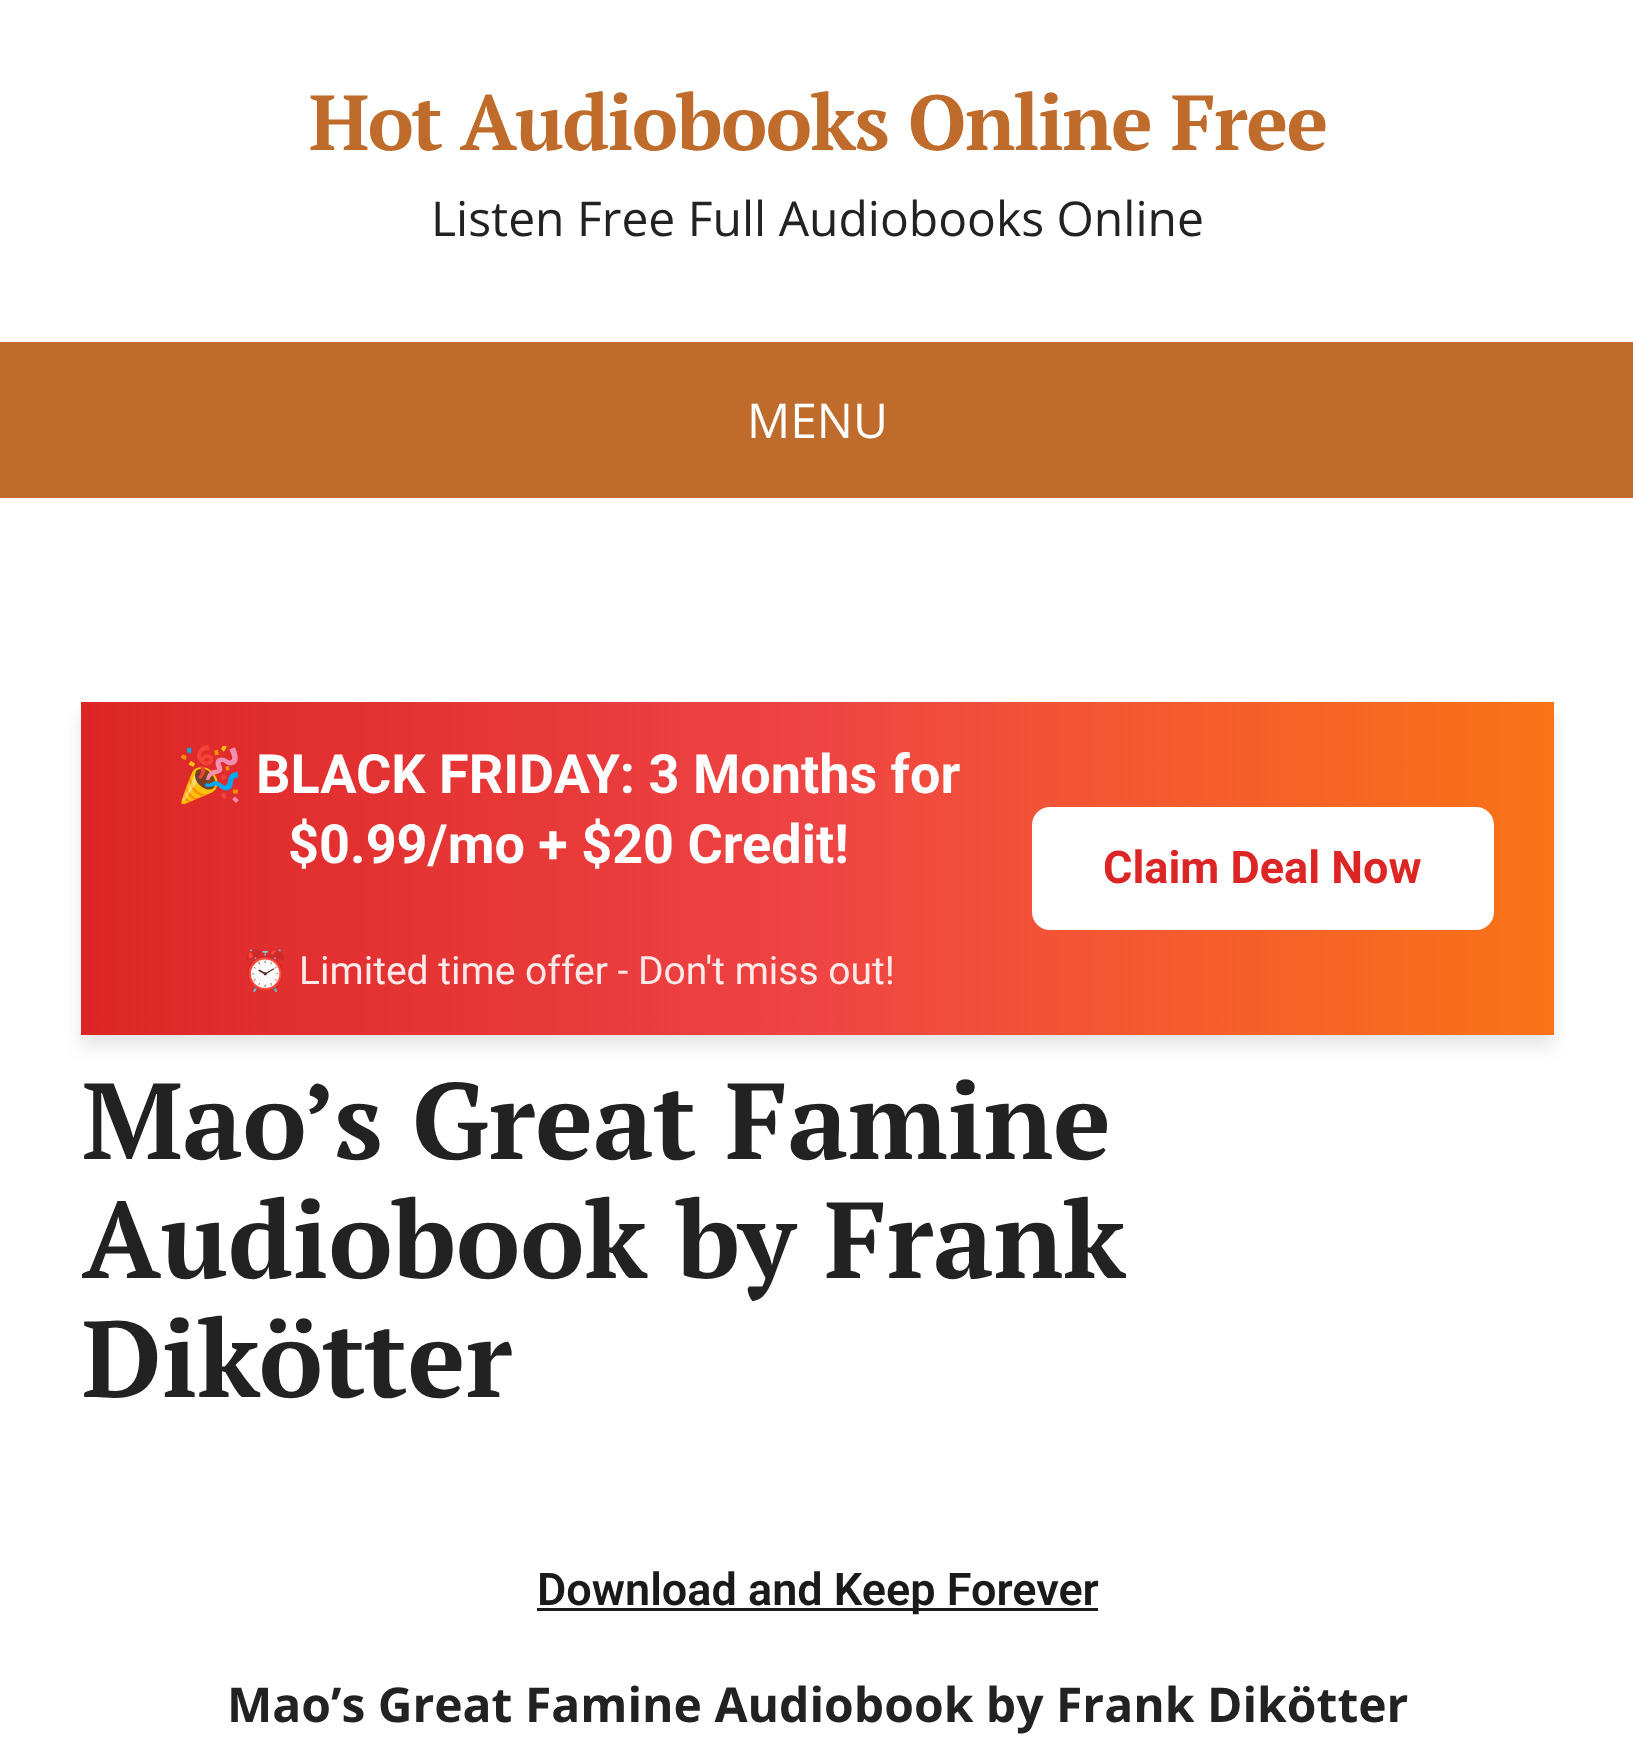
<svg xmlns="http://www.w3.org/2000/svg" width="1633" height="1751">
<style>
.a{font:bold 78px PT Serif;letter-spacing:-1.55px;fill:#bf6b2b}
.b{font:48px Open Sans;fill:#222}
.c{font:48px Open Sans;fill:#fff}
.d{font:bold 54px Noto Color Emoji;fill:#fff}
.e{font:bold 54px Roboto;fill:#fff}
.f{font:39px Noto Color Emoji;fill:#fceaea}
.g{font:39px Roboto;fill:#fceaea}
.h{font:bold 45px Roboto;fill:#dc2626}
.i{font:bold 108px PT Serif;fill:#222}
.j{font:600 45px Roboto;fill:#1a1a1a}
.k{font:bold 48px Open Sans;fill:#222}
</style>
<defs>
<linearGradient id="g1" gradientUnits="userSpaceOnUse" x1="81" y1="869" x2="1554" y2="869"><stop offset="0" stop-color="#dc2626"/><stop offset="0.5" stop-color="#ef4444"/><stop offset="1" stop-color="#f97316"/></linearGradient>
</defs>
<rect width="100%" height="100%" fill="#fff"/>
<path fill="#bf6b2b" d="M0 342h1633v156H0z"/>
<path fill="#0000001a" filter="blur(9px)" d="M81 714h1473v333H81z"/>
<path fill="url(#g1)" d="M81 702h1473v333H81z"/>
<rect fill="#fff" x="1032" y="807" width="462" height="123" rx="18"/>
<path fill="#1a1a1a" d="M537 1608h561v3H537z"/>
<text class="a" x="309" y="150">Hot Audiobooks Online Free</text>
<text class="b" x="431" y="236">Listen Free Full Audiobooks Online</text>
<text class="c" x="747" y="438">MENU</text>
<text class="d" x="176" y="793">🎉</text>
<text class="e" x="256" y="793">BLACK FRIDAY: 3 Months for</text>
<text class="e" x="288" y="863">$0.99/mo + $20 Credit!</text>
<text class="f" x="241" y="984">⏰</text>
<text class="g" x="299" y="984">Limited time offer - Don't miss out!</text>
<text class="h" x="1103" y="883">Claim Deal Now</text>
<text class="i" x="82" y="1159">Mao’s Great Famine</text>
<text class="i" x="82" y="1278">Audiobook by Frank</text>
<text class="i" x="82" y="1397">Dikötter</text>
<text class="j" x="537" y="1605">Download and Keep Forever</text>
<text class="k" x="227" y="1722">Mao’s Great Famine Audiobook by Frank Dikötter</text>
</svg>
